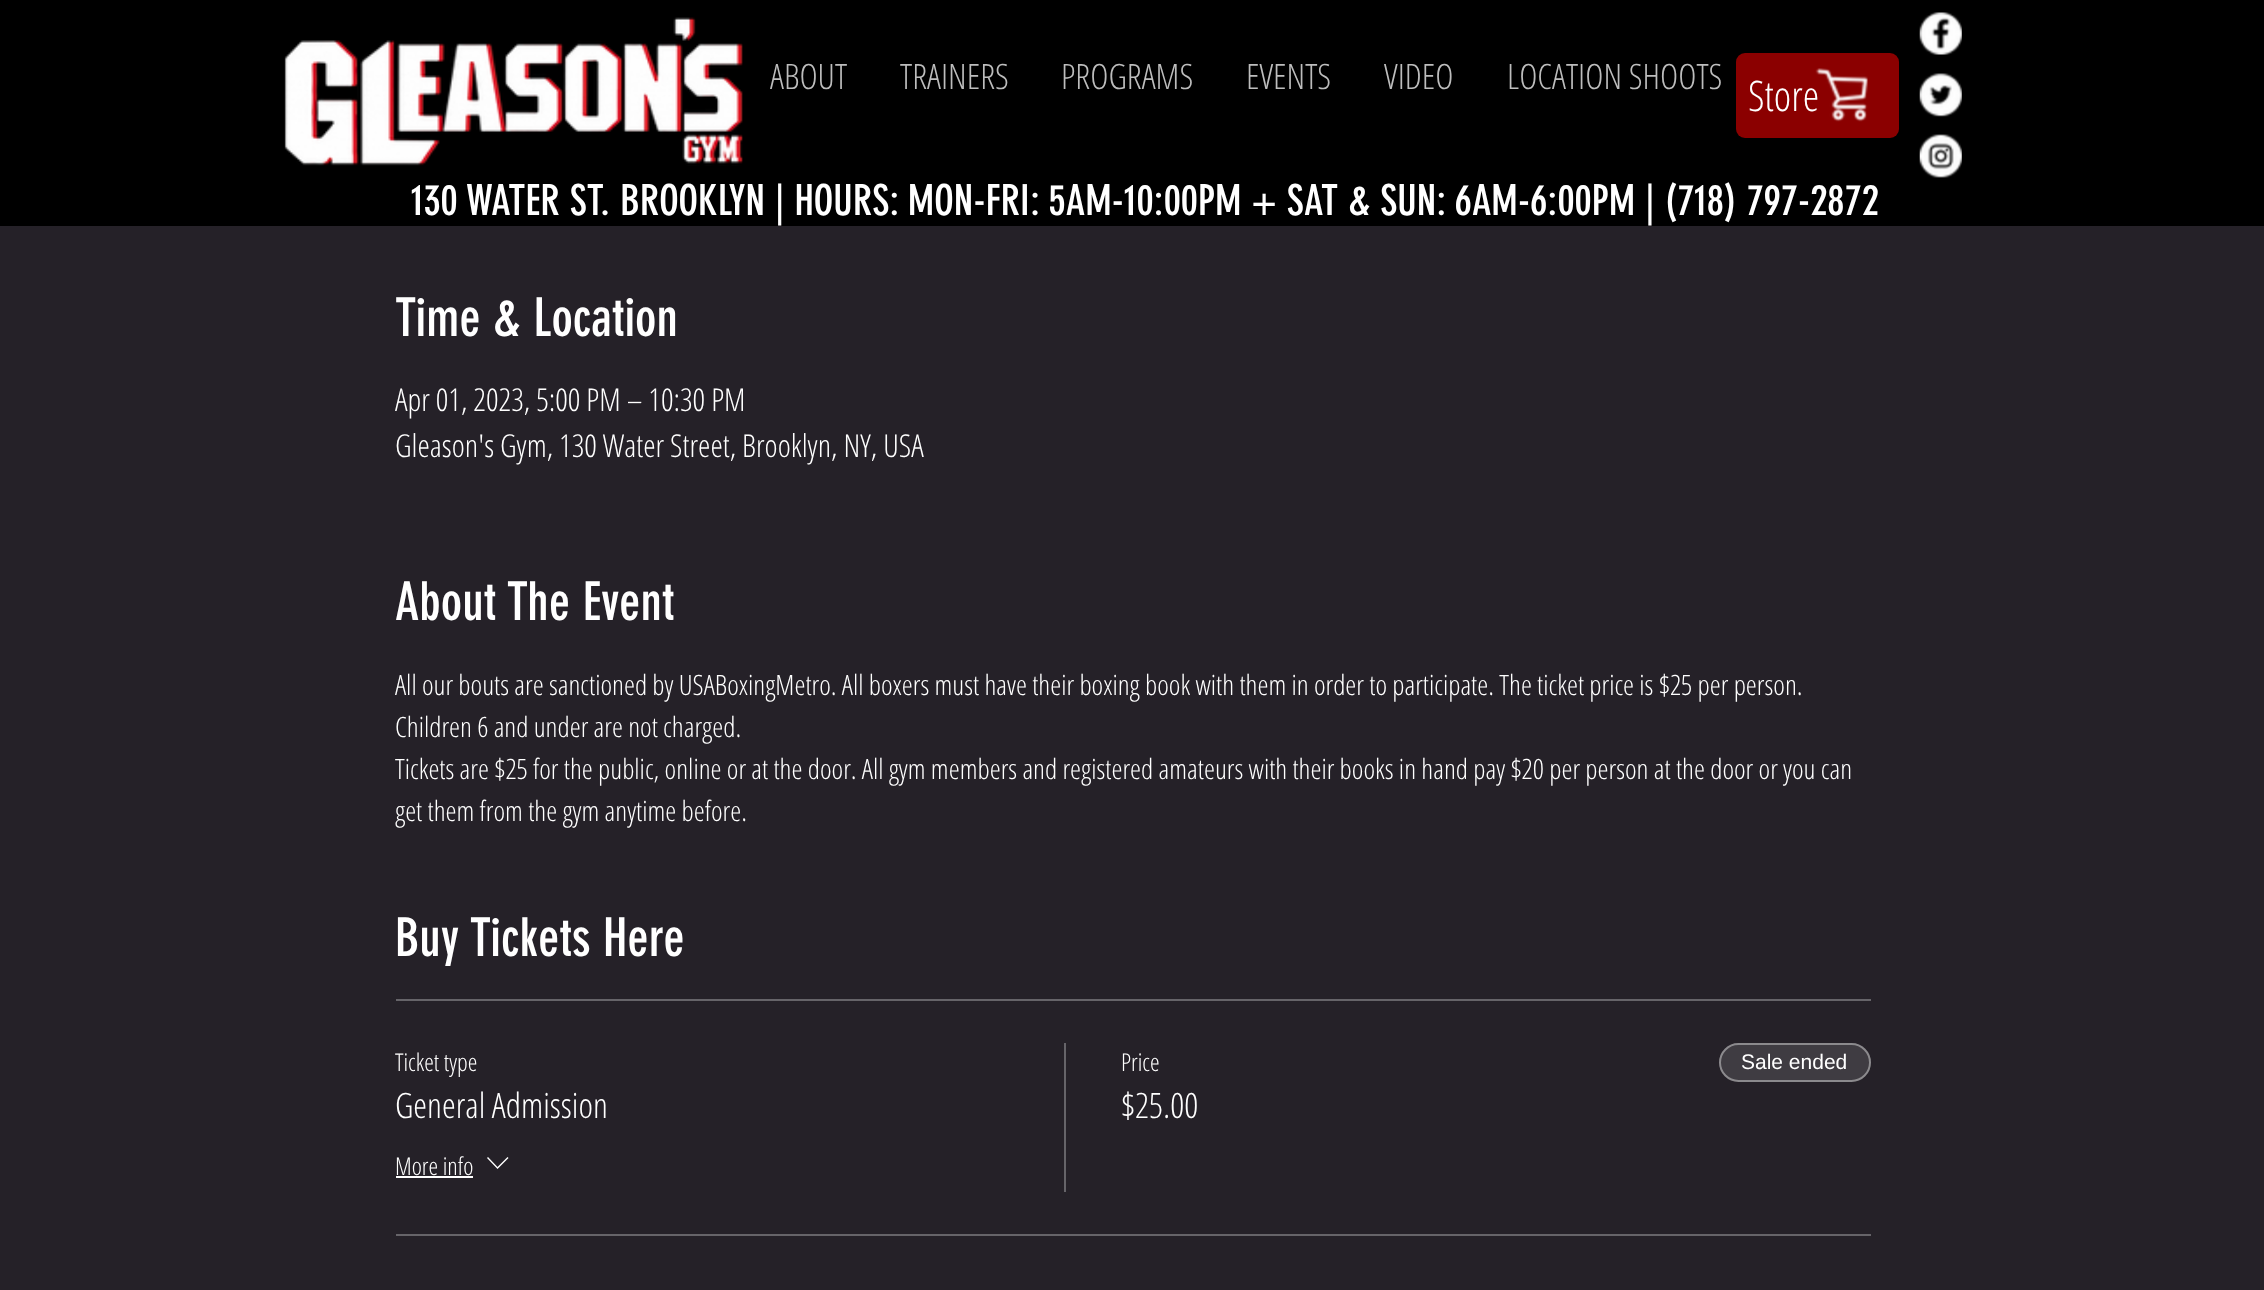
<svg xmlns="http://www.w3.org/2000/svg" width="2264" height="1290">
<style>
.a{font:300 35px Open Sans Condensed;fill:#bdbdbd}
.b{font:300 42px Open Sans Condensed;fill:#fff}
.c{font:42px 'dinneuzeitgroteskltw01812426';fill:#fff}
.d{font:52.5px 'dinneuzeitgroteskltw01812426';fill:#fff}
.e{font:300 31.5px Open Sans Condensed;fill:#fff}
.f{font:300 28px Open Sans Condensed;fill:#fff}
.g{font:300 24.5px Open Sans Condensed;fill:#fff}
.h{font:300 35px Open Sans Condensed;fill:#fff}
.i{font:21px Liberation Sans;fill:#fff}
</style>
<rect width="100%" height="100%" fill="#252128"/>
<path fill="#000" d="M0 0h2264v226H0z"/>
<image href="1.png" x="284" y="17" width="459" height="149"/>
<rect fill="#8b0000" x="1736" y="53" width="163" height="85" rx="9"/>
<image href="3.png" x="1919" y="12" width="43" height="43"/>
<image href="4.png" x="1919" y="73" width="43" height="44"/>
<image href="5.png" x="1919" y="134" width="43" height="44"/>
<path fill="#666469" d="M396 999h1475v2H396z"/>
<path fill="#666469" d="M396 1234h1475v2H396z"/>
<path fill="#fff" d="M396 1176h77v2H396z"/>
<path fill="#fff" fill-rule="evenodd" d="M507.5 1157l1 1l-11 11l-10.5-11l1-1l9.5 10z"/>
<path fill="#666469" d="M1064 1043h2v149H1064z"/>
<rect fill="#3f3c42" x="1719" y="1043" width="152" height="39" rx="19.5"/>
<rect fill="none" stroke="#ffffff66" stroke-width="2" x="1720" y="1044" width="150" height="37" rx="18.5"/>
<text class="a" x="770" y="89">ABOUT</text>
<text class="a" x="900" y="89">TRAINERS</text>
<text class="a" x="1061" y="89">PROGRAMS</text>
<text class="a" x="1246" y="89">EVENTS</text>
<text class="a" x="1384" y="89">VIDEO</text>
<text class="a" x="1507" y="89">LOCATION SHOOTS</text>
<text class="b" x="1748" y="111">Store</text>
<image href="2.png" x="1815" y="68" width="53" height="54"/>
<text class="c" x="411" y="215">130 WATER ST. BROOKLYN | HOURS: MON-FRI: 5AM-10:00PM + SAT &amp; SUN: 6AM-6:00PM | (718) 797-2872</text>
<text class="d" x="395" y="336">Time &amp; Location</text>
<text class="e" x="395" y="411">Apr 01, 2023, 5:00 PM – 10:30 PM</text>
<text class="e" x="395" y="457">Gleason's Gym, 130 Water Street, Brooklyn, NY, USA</text>
<text class="d" x="395" y="620">About The Event</text>
<text class="f" x="395" y="695">All our bouts are sanctioned by USABoxingMetro. All boxers must have their boxing book with them in order to participate. The ticket price is $25 per person.</text>
<text class="f" x="395" y="737">Children 6 and under are not charged.</text>
<text class="f" x="395" y="779">Tickets are $25 for the public, online or at the door. All gym members and registered amateurs with their books in hand pay $20 per person at the door or you can</text>
<text class="f" x="395" y="821">get them from the gym anytime before.</text>
<text class="d" x="395" y="956">Buy Tickets Here</text>
<text class="g" x="395" y="1071">Ticket type</text>
<text class="h" x="395" y="1118">General Admission</text>
<text class="g" x="395" y="1175">More info</text>
<text class="g" x="1121" y="1071">Price</text>
<text class="h" x="1121" y="1118">$25.00</text>
<text class="i" x="1741" y="1069">Sale ended</text>
</svg>
